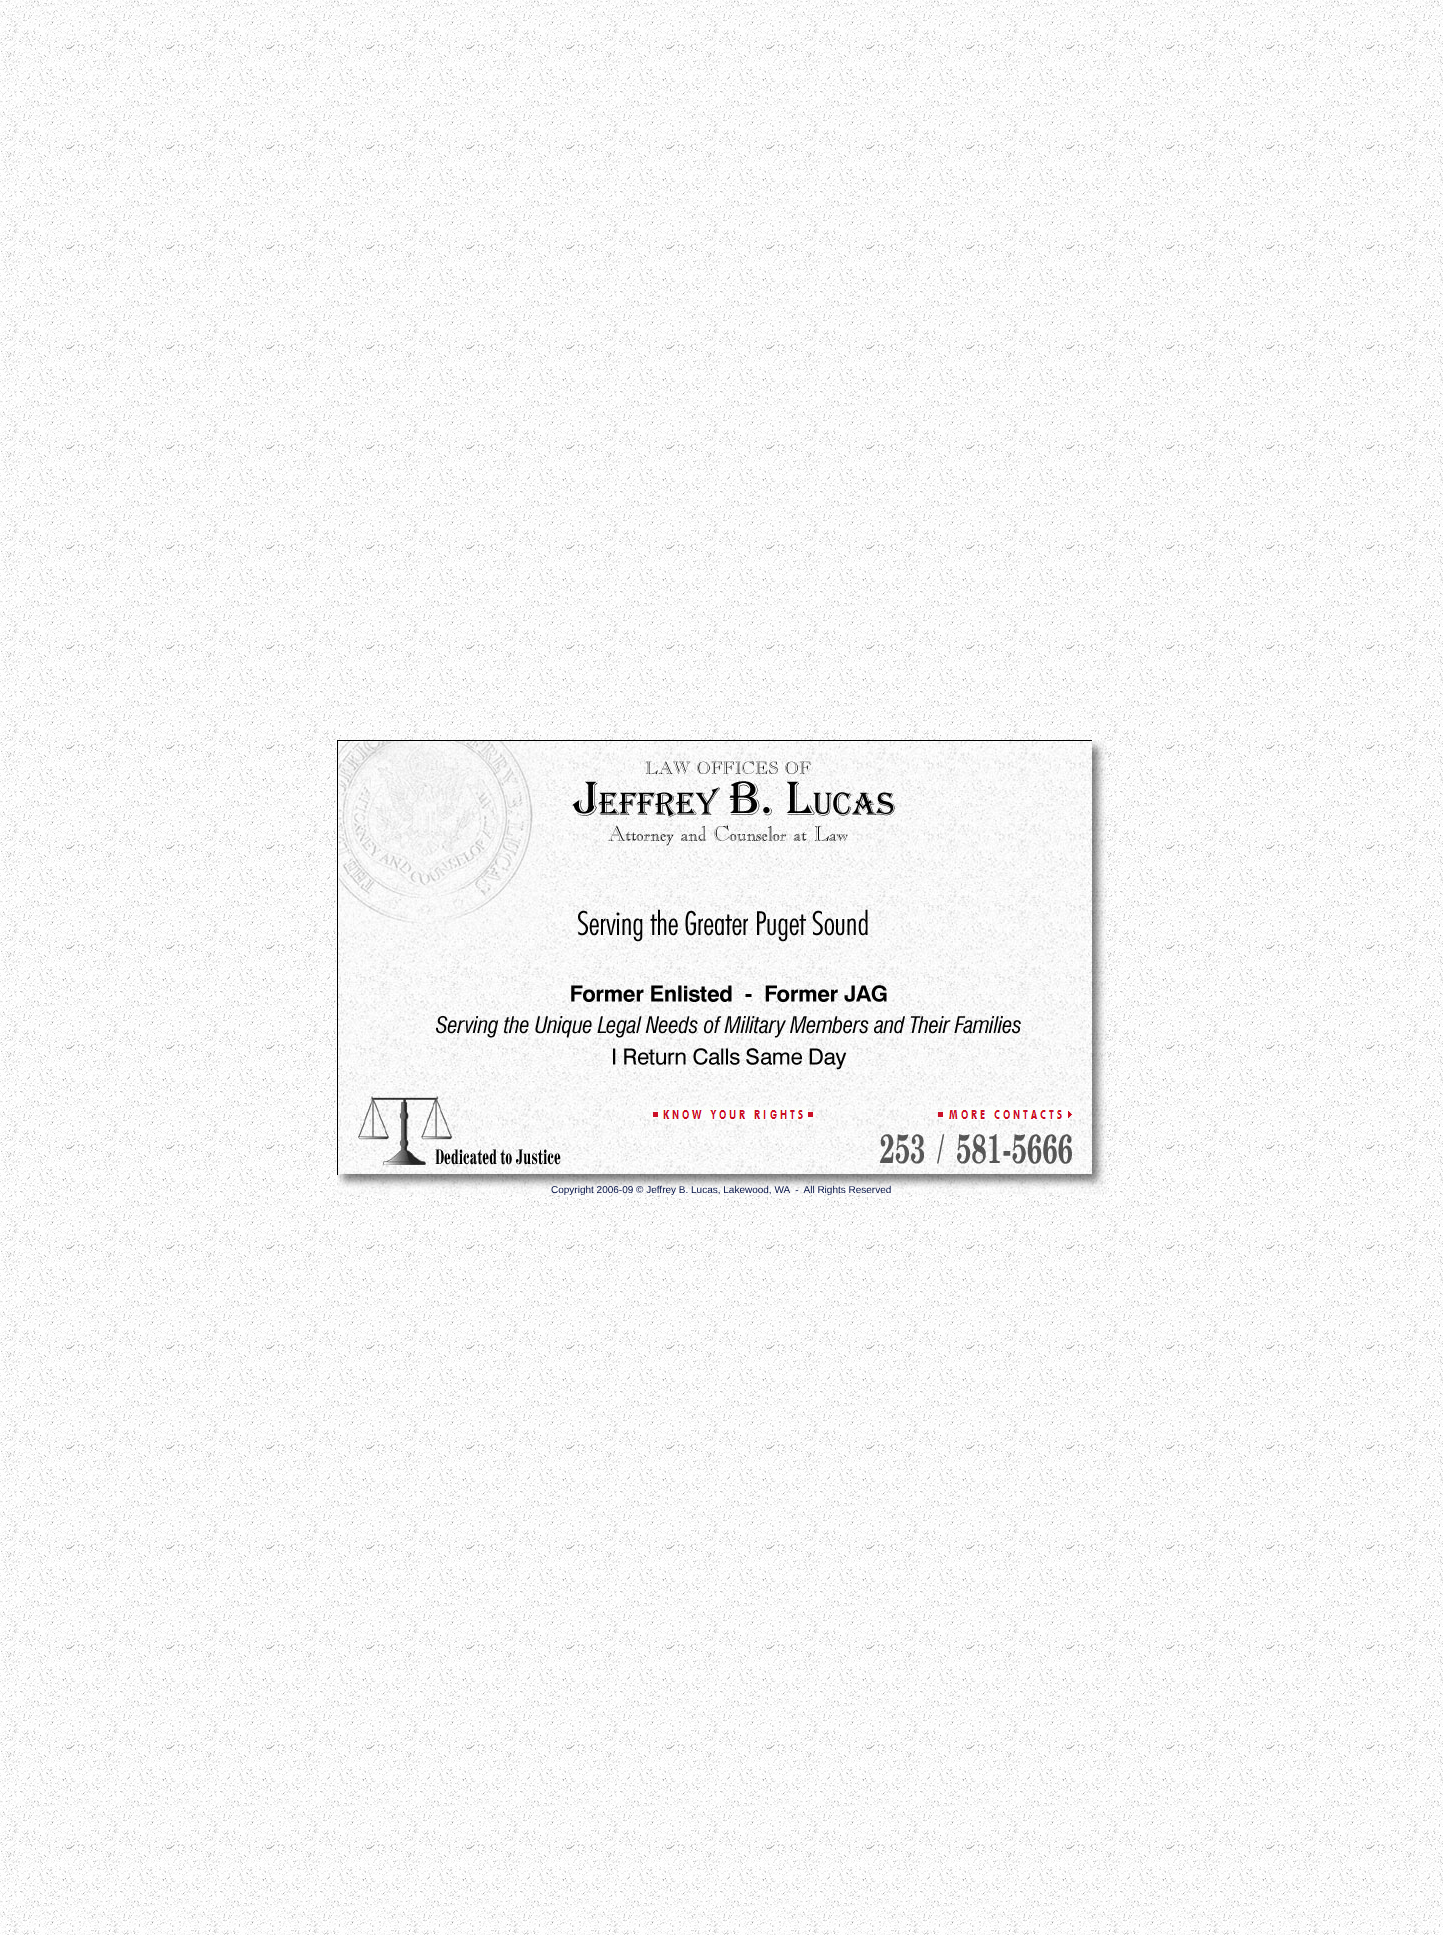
<svg xmlns="http://www.w3.org/2000/svg" width="1443" height="1935">
<style>
.a{font:10px Liberation Sans;fill:#000f45}
</style>
<rect width="100%" height="100%" fill="#fff"/>
<image href="1.png" x="0" y="0" width="1443" height="1935"/>
<image href="2.png" x="337" y="740" width="770" height="455"/>
<path fill="#000" d="M337 740h755v1H337z"/>
<path fill="#000" d="M337 740h1v435H337z"/>
<path fill="#cc1028" d="M653 1112h5v5H653z"/>
<image href="3.png" x="658" y="1107" width="150" height="13"/>
<path fill="#cc1028" d="M808 1112h5v5H808z"/>
<path fill="#cc1028" d="M938 1112h5v5H938z"/>
<image href="4.png" x="943" y="1107" width="125" height="13"/>
<image href="5.png" x="1068" y="1111" width="4" height="7"/>
<text class="a" xml:space="preserve" x="551" y="1193">Copyright 2006-09 © Jeffrey B. Lucas, Lakewood, WA  -  All Rights Reserved</text>
</svg>
